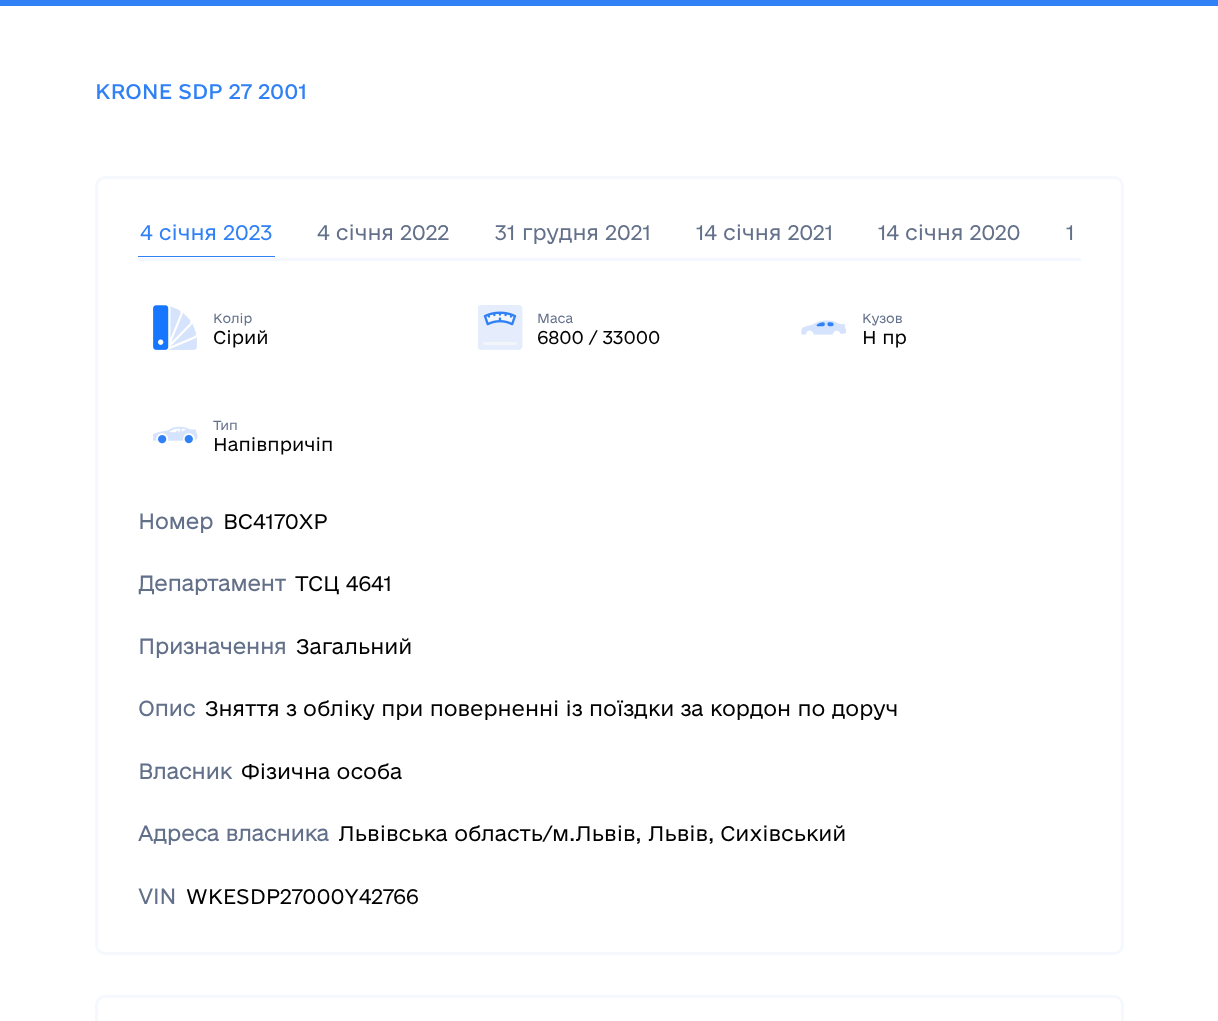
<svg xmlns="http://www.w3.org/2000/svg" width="1218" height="1021">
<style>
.a{font:20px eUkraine;fill:#3081f6}
.b{font:300 20px eUkraine;fill:#3081f6}
.c{font:300 20px eUkraine;fill:#63708a}
.d{font:300 12.5px eUkraine;fill:#63708a}
.e{font:300 17.5px eUkraine;fill:#000}
.f{font:bold 20px eUkraine;fill:#63708a}
.g{font:300 20px eUkraine;fill:#000}
</style>
<rect width="100%" height="100%" fill="#fff"/>
<path fill="#3081f6" d="M0 0h1218v6H0z"/>
<rect fill="none" stroke="#f5f8fd" stroke-width="3" x="96.5" y="177.5" width="1026" height="776" rx="8.5"/>
<path fill="#f4f7ff" d="M138 258h943v3H138z"/>
<path fill="#3081f6" d="M138 256h137v1H138z"/>
<image href="1.png" x="153" y="305" width="44" height="45"/>
<image href="2.png" x="478" y="305" width="45" height="45"/>
<image href="3.png" x="801" y="320" width="45" height="15"/>
<image href="4.png" x="153" y="426" width="45" height="18"/>
<rect fill="none" stroke="#f5f8fd" stroke-width="3" x="96.5" y="996.5" width="1026" height="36" rx="8.5"/>
<text class="a" x="95" y="99">KRONE SDP 27 2001</text>
<text class="b" x="140" y="240">4 січня 2023</text>
<text class="c" x="317" y="240">4 січня 2022</text>
<text class="c" x="495" y="240">31 грудня 2021</text>
<text class="c" x="696" y="240">14 січня 2021</text>
<text class="c" x="878" y="240">14 січня 2020</text>
<text class="c" x="1066" y="240">1</text>
<text class="d" x="213" y="323">Колір</text>
<text class="e" x="213" y="344">Сірий</text>
<text class="d" x="537" y="323">Маса</text>
<text class="e" x="537" y="344">6800 / 33000</text>
<text class="d" x="862" y="323">Кузов</text>
<text class="e" x="862" y="344">Н пр</text>
<text class="d" x="213" y="430">Тип</text>
<text class="e" x="213" y="451">Напівпричіп</text>
<text class="f" x="138" y="529">Номер</text>
<text class="g" x="223" y="529">ВС4170ХР</text>
<text class="f" x="138" y="591">Департамент</text>
<text class="g" x="295" y="591">ТСЦ 4641</text>
<text class="f" x="138" y="654">Призначення</text>
<text class="g" x="296" y="654">Загальний</text>
<text class="f" x="138" y="716">Опис</text>
<text class="g" x="205" y="716">Зняття з обліку при поверненні із поїздки за кордон по доруч</text>
<text class="f" x="138" y="779">Власник</text>
<text class="g" x="241" y="779">Фізична особа</text>
<text class="f" x="138" y="841">Адреса власника</text>
<text class="g" x="338" y="841">Львівська область/м.Львів, Львів, Сихівський</text>
<text class="f" x="138" y="904">VIN</text>
<text class="g" x="186" y="904">WKESDP27000Y42766</text>
</svg>
